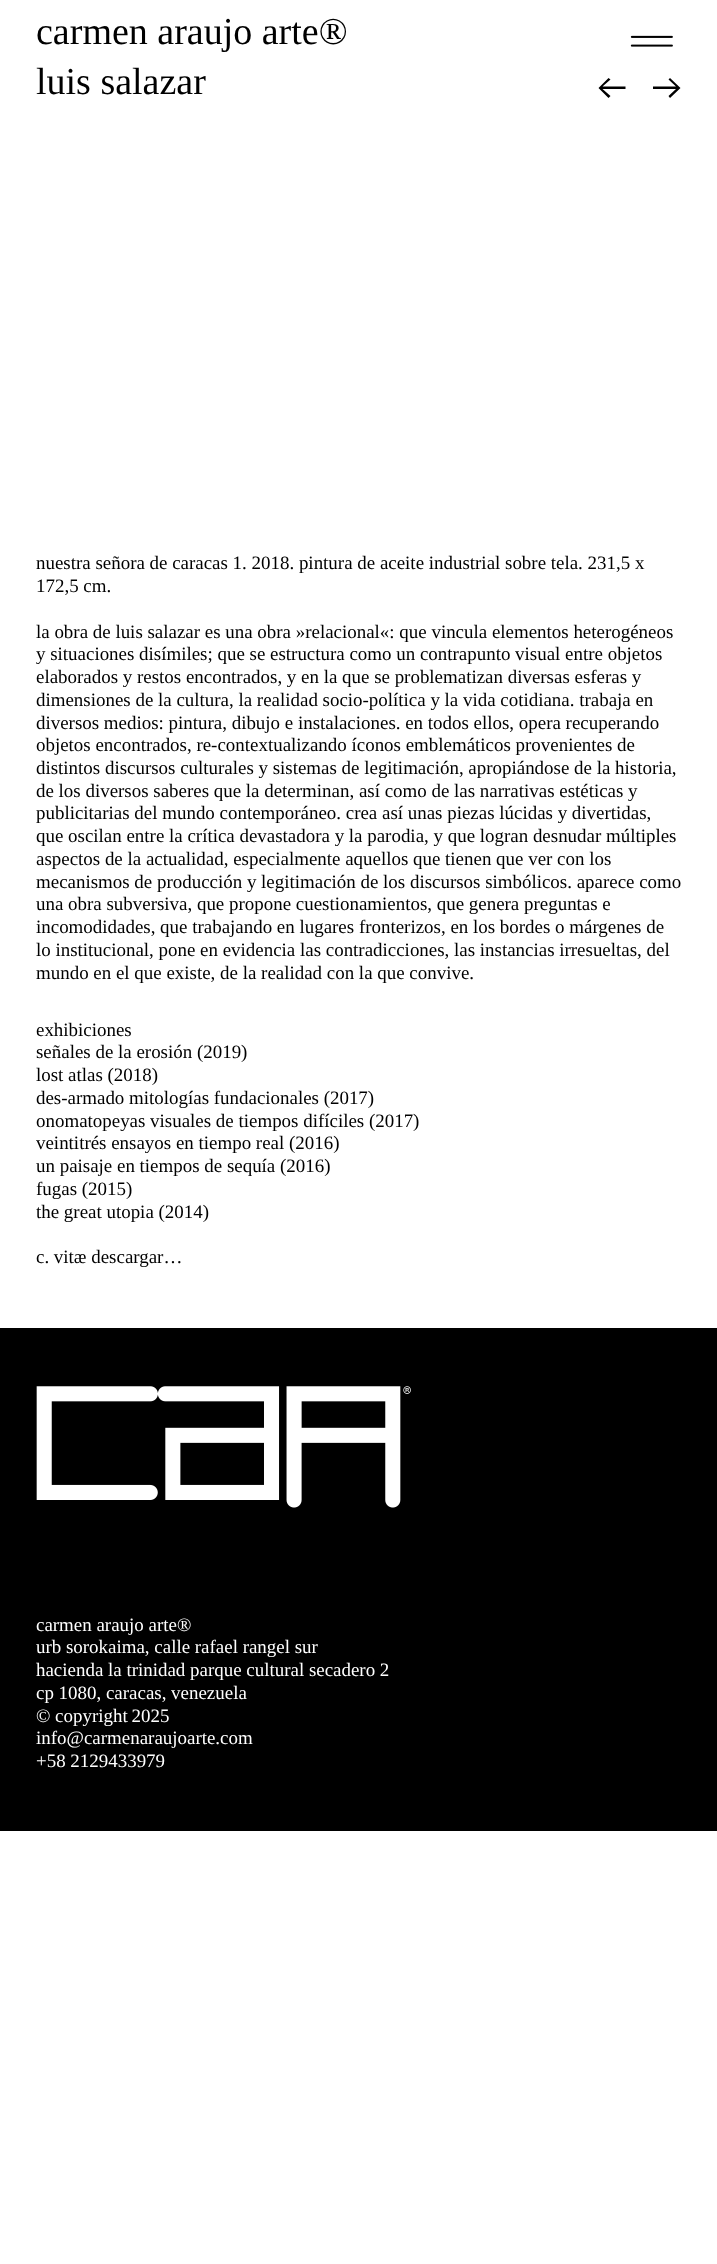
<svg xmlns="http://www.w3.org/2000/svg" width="717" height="2264">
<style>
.a{font:38px Liberation Serif;fill:#000}
.b{font:18.95px Liberation Serif;fill:#000}
.c{font:18.95px Liberation Serif;fill:#fff}
</style>
<rect width="100%" height="100%" fill="#fff"/>
<path fill="#000" d="M625.5 86.5h-23l8-7l-2-1.5l-10 10l10 10l2-2l-8-7h23z"/>
<path fill="#000" d="M653 89h23l-7.5 7l1.5 2l10.5-10l-10.5-10l-1.5 1.5l7.5 7h-23z"/>
<path fill="#000" d="M0 1328h717v503H0z"/>
<image href="1.png" x="36" y="1386" width="375" height="122"/>
<image href="2.png" x="630" y="35" width="43" height="12"/>
<text class="a" x="36" y="44">carmen araujo arte®</text>
<text class="a" x="36" y="94">luis salazar</text>
<text class="b" x="36" y="569">nuestra señora de caracas 1. 2018. pintura de aceite industrial sobre tela. 231,5 x</text>
<text class="b" x="36" y="592">172,5 cm.</text>
<text class="b" x="36" y="638">la obra de luis salazar es una obra »relacional«: que vincula elementos heterogéneos</text>
<text class="b" x="36" y="660">y situaciones disímiles; que se estructura como un contrapunto visual entre objetos</text>
<text class="b" x="36" y="683">elaborados y restos encontrados, y en la que se problematizan diversas esferas y</text>
<text class="b" x="36" y="706">dimensiones de la cultura, la realidad socio-política y la vida cotidiana. trabaja en</text>
<text class="b" x="36" y="729">diversos medios: pintura, dibujo e instalaciones. en todos ellos, opera recuperando</text>
<text class="b" x="36" y="751">objetos encontrados, re-contextualizando íconos emblemáticos provenientes de</text>
<text class="b" x="36" y="774">distintos discursos culturales y sistemas de legitimación, apropiándose de la historia,</text>
<text class="b" x="36" y="797">de los diversos saberes que la determinan, así como de las narrativas estéticas y</text>
<text class="b" x="36" y="819">publicitarias del mundo contemporáneo. crea así unas piezas lúcidas y divertidas,</text>
<text class="b" x="36" y="842">que oscilan entre la crítica devastadora y la parodia, y que logran desnudar múltiples</text>
<text class="b" x="36" y="865">aspectos de la actualidad, especialmente aquellos que tienen que ver con los</text>
<text class="b" x="36" y="888">mecanismos de producción y legitimación de los discursos simbólicos. aparece como</text>
<text class="b" x="36" y="910">una obra subversiva, que propone cuestionamientos, que genera preguntas e</text>
<text class="b" x="36" y="933">incomodidades, que trabajando en lugares fronterizos, en los bordes o márgenes de</text>
<text class="b" x="36" y="956">lo institucional, pone en evidencia las contradicciones, las instancias irresueltas, del</text>
<text class="b" x="36" y="979">mundo en el que existe, de la realidad con la que convive.</text>
<text class="b" x="36" y="1036">exhibiciones</text>
<text class="b" x="36" y="1058">señales de la erosión (2019)</text>
<text class="b" x="36" y="1081">lost atlas (2018)</text>
<text class="b" x="36" y="1104">des-armado mitologías fundacionales (2017)</text>
<text class="b" x="36" y="1127">onomatopeyas visuales de tiempos difíciles (2017)</text>
<text class="b" x="36" y="1149">veintitrés ensayos en tiempo real (2016)</text>
<text class="b" x="36" y="1172">un paisaje en tiempos de sequía (2016)</text>
<text class="b" x="36" y="1195">fugas (2015)</text>
<text class="b" x="36" y="1218">the great utopia (2014)</text>
<text class="b" x="36" y="1263">c. vitæ descargar…</text>
<text class="c" x="36" y="1631">carmen araujo arte®</text>
<text class="c" x="36" y="1653">urb sorokaima, calle rafael rangel sur</text>
<text class="c" x="36" y="1676">hacienda la trinidad parque cultural secadero 2</text>
<text class="c" x="36" y="1699">cp 1080, caracas, venezuela</text>
<text class="c" x="36" y="1722">© copyright 2025</text>
<text class="c" x="36" y="1744">info@carmenaraujoarte.com</text>
<text class="c" x="36" y="1767">+58 2129433979</text>
</svg>
